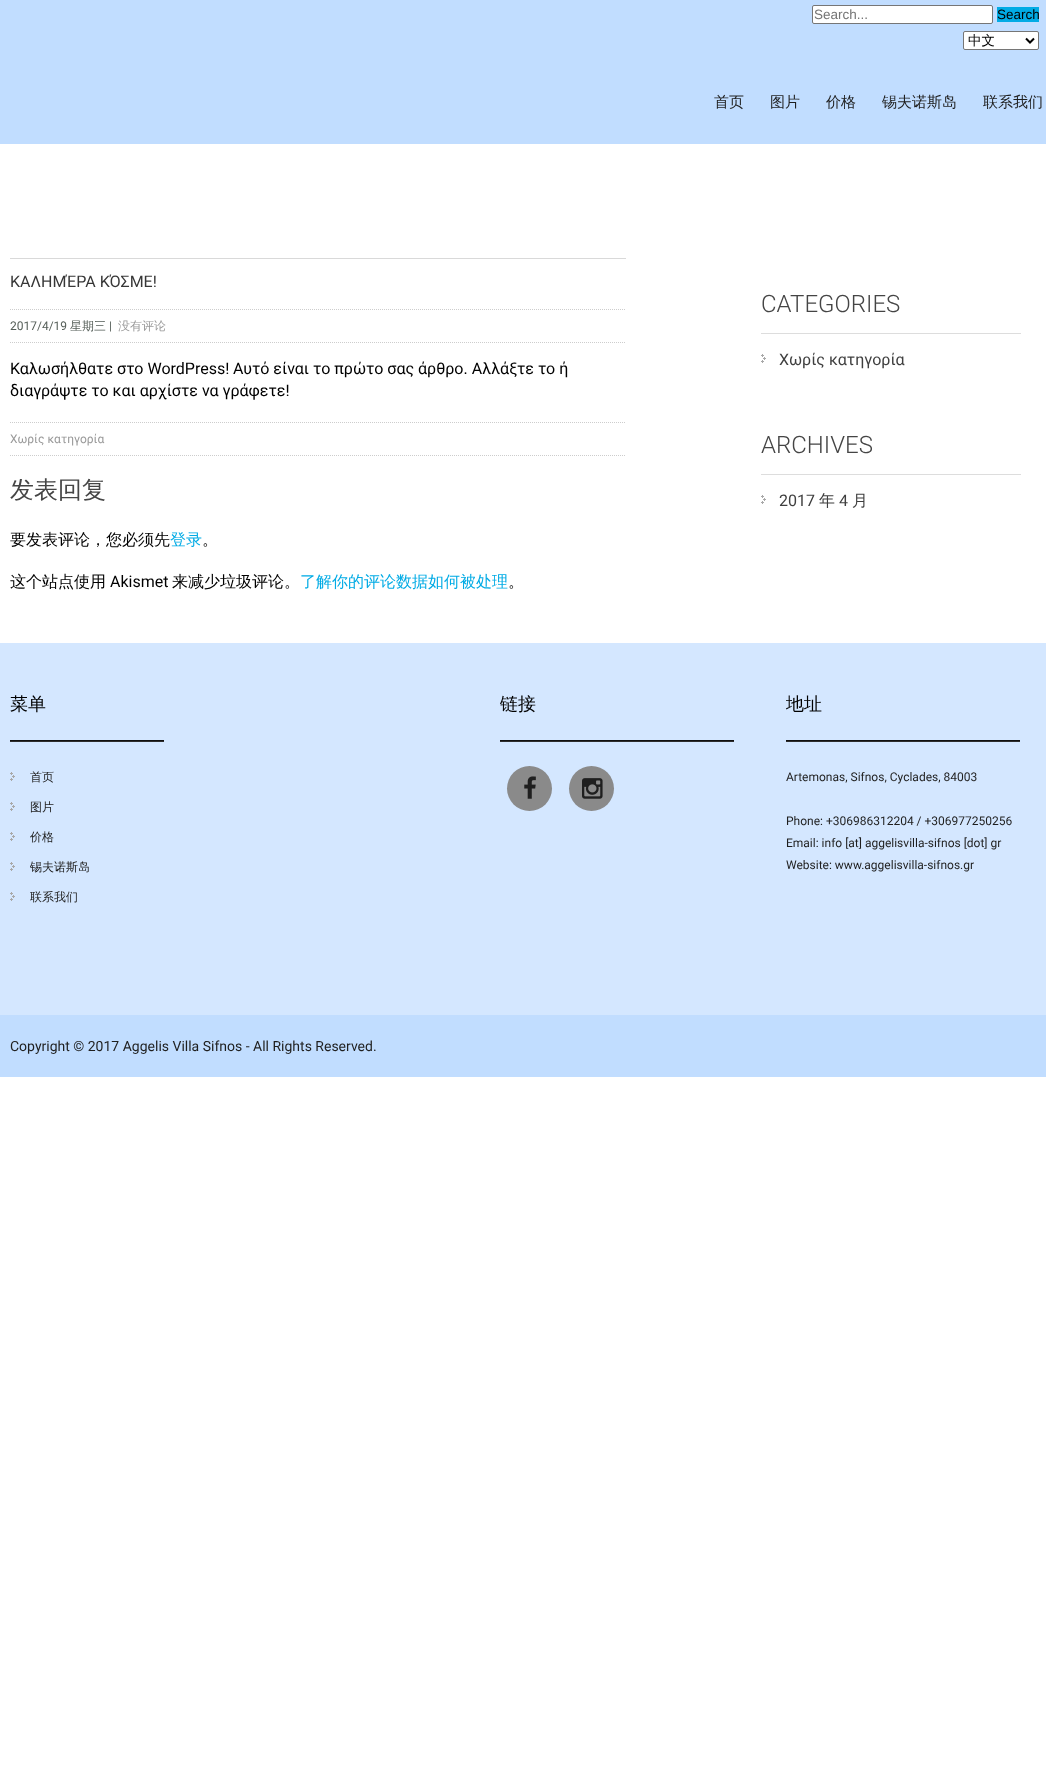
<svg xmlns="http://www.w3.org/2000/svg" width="1046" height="1780">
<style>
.a{font:13.5px Liberation Sans;fill:#757575}
.b{font:13.5px Liberation Sans;fill:#000}
.c{font:500 13.5px WenQuanYi Zen Hei;fill:#000}
.d{font:500 15px WenQuanYi Zen Hei;fill:#1f1f1f}
.e{font:16px Roboto;fill:#373737}
.f{font:12px Roboto;fill:#555e58}
.g{font:500 12px WenQuanYi Zen Hei;fill:#555e58}
.h{font:500 12px WenQuanYi Zen Hei;fill:#999}
.i{font:16px Roboto;fill:#000}
.j{font:12px Roboto;fill:#999}
.k{font:500 24px WenQuanYi Zen Hei;fill:#454545}
.l{font:500 16px WenQuanYi Zen Hei;fill:#000}
.m{font:500 16px WenQuanYi Zen Hei;fill:#02abe5}
.n{font:300 24px Roboto;fill:#454545}
.o{font:16px Roboto;fill:#3f3f3f}
.p{font:500 16px WenQuanYi Zen Hei;fill:#3f3f3f}
.q{font:500 18px WenQuanYi Zen Hei;fill:#000}
.r{font:500 12px WenQuanYi Zen Hei;fill:#1f1f1f}
.s{font:12px Roboto;fill:#1f1f1f}
.t{font:14px Roboto;fill:#1f1f1f}
</style>
<rect width="100%" height="100%" fill="#fff"/>
<path fill="#c1ddff" d="M0 0h1046v144H0z"/>
<rect fill="#fff" stroke="#767676" x="812.5" y="5.5" width="180" height="18" rx="1.5"/>
<path fill="#02abe5" d="M997 7h42v15H997z"/>
<rect fill="#fff" stroke="#767676" x="963.5" y="31.5" width="75" height="18" rx="1.5"/>
<path fill="none" stroke="#000" stroke-width="2" d="M1026 38.5l4 4l4-4"/>
<path fill="#d9d9d9" d="M10 258h616v1H10z"/>
<path fill="none" stroke="#cdcdcd" stroke-dasharray="1 1" d="M10 309.5h616"/>
<path fill="none" stroke="#cdcdcd" stroke-dasharray="1 1" d="M10 342.5h616"/>
<path fill="none" stroke="#cdcdcd" stroke-dasharray="1 1" d="M10 422.5h616"/>
<path fill="none" stroke="#cdcdcd" stroke-dasharray="1 1" d="M10 455.5h616"/>
<path fill="#ddd" d="M761 333h260v1H761z"/>
<image href="1.png" x="761" y="354" width="5" height="9"/>
<path fill="#ddd" d="M761 474h260v1H761z"/>
<image href="1.png" x="761" y="495" width="5" height="9"/>
<path fill="#d4e7ff" d="M0 643h1046v372H0z"/>
<path fill="#2e2e2e" d="M10 741h154v1H10z"/>
<path fill="#101010" d="M10 740h154v1H10z"/>
<image href="2.png" x="10" y="772" width="5" height="9"/>
<image href="2.png" x="10" y="802" width="5" height="9"/>
<image href="2.png" x="10" y="832" width="5" height="9"/>
<image href="2.png" x="10" y="862" width="5" height="9"/>
<image href="2.png" x="10" y="892" width="5" height="9"/>
<path fill="#2e2e2e" d="M500 741h234v1H500z"/>
<path fill="#101010" d="M500 740h234v1H500z"/>
<circle fill="#8a8a8a" cx="529.5" cy="788.5" r="22.5"/>
<image href="3.png" x="524" y="776" width="12" height="23"/>
<circle fill="#8a8a8a" cx="591.5" cy="788.5" r="22.5"/>
<image href="4.png" x="582" y="778" width="21" height="21"/>
<path fill="#2e2e2e" d="M786 741h234v1H786z"/>
<path fill="#101010" d="M786 740h234v1H786z"/>
<path fill="#c1ddff" d="M0 1015h1046v62H0z"/>
<text class="a" x="814" y="19">Search...</text>
<text class="b" x="997" y="19">Search</text>
<text class="c" x="968" y="45">中文</text>
<text class="d" x="714" y="107">首页</text>
<text class="d" x="770" y="107">图片</text>
<text class="d" x="826" y="107">价格</text>
<text class="d" x="882" y="107">锡夫诺斯岛</text>
<text class="d" x="983" y="107">联系我们</text>
<text class="e" x="10" y="287">ΚΑΛΗΜΈΡΑ ΚΌΣΜΕ!</text>
<text class="f" x="10" y="330">2017/4/19</text>
<text class="g" x="70" y="330">星期三</text>
<text class="f" x="109" y="330">|</text>
<text class="h" x="118" y="330">没有评论</text>
<text class="i" x="10" y="374">Καλωσήλθατε στο WordPress!</text>
<text class="i" x="233" y="374">Αυτό είναι το πρώτο σας άρθρο. Αλλάξτε το ή</text>
<text class="i" x="10" y="396">διαγράψτε το και αρχίστε να γράφετε!</text>
<text class="j" x="10" y="443">Χωρίς κατηγορία</text>
<text class="k" x="10" y="498">发表回复</text>
<text class="l" x="10" y="545">要发表评论，您必须先</text>
<text class="m" x="170" y="545">登录</text>
<text class="l" x="202" y="545">。</text>
<text class="l" x="10" y="587">这个站点使用</text>
<text class="i" x="110" y="587">Akismet</text>
<text class="l" x="172" y="587">来减少垃圾评论。</text>
<text class="m" x="300" y="587">了解你的评论数据如何被处理</text>
<text class="l" x="508" y="587">。</text>
<text class="n" x="761" y="312">CATEGORIES</text>
<text class="o" x="779" y="365">Χωρίς κατηγορία</text>
<text class="n" x="761" y="453">ARCHIVES</text>
<text class="o" x="779" y="506">2017</text>
<text class="p" x="819" y="506">年</text>
<text class="o" x="839" y="506">4</text>
<text class="p" x="852" y="506">月</text>
<text class="q" x="10" y="710">菜单</text>
<text class="r" x="30" y="781">首页</text>
<text class="r" x="30" y="811">图片</text>
<text class="r" x="30" y="841">价格</text>
<text class="r" x="30" y="871">锡夫诺斯岛</text>
<text class="r" x="30" y="901">联系我们</text>
<text class="q" x="500" y="710">链接</text>
<text class="q" x="786" y="710">地址</text>
<text class="s" x="786" y="781">Artemonas, Sifnos, Cyclades, 84003</text>
<text class="s" x="786" y="825">Phone: +306986312204 / +306977250256</text>
<text class="s" x="786" y="847">Email: info [at] aggelisvilla-sifnos [dot] gr</text>
<text class="s" x="786" y="869">Website: www.aggelisvilla-sifnos.gr</text>
<text class="t" x="10" y="1051">Copyright © 2017 Aggelis Villa Sifnos - All Rights Reserved.</text>
</svg>
